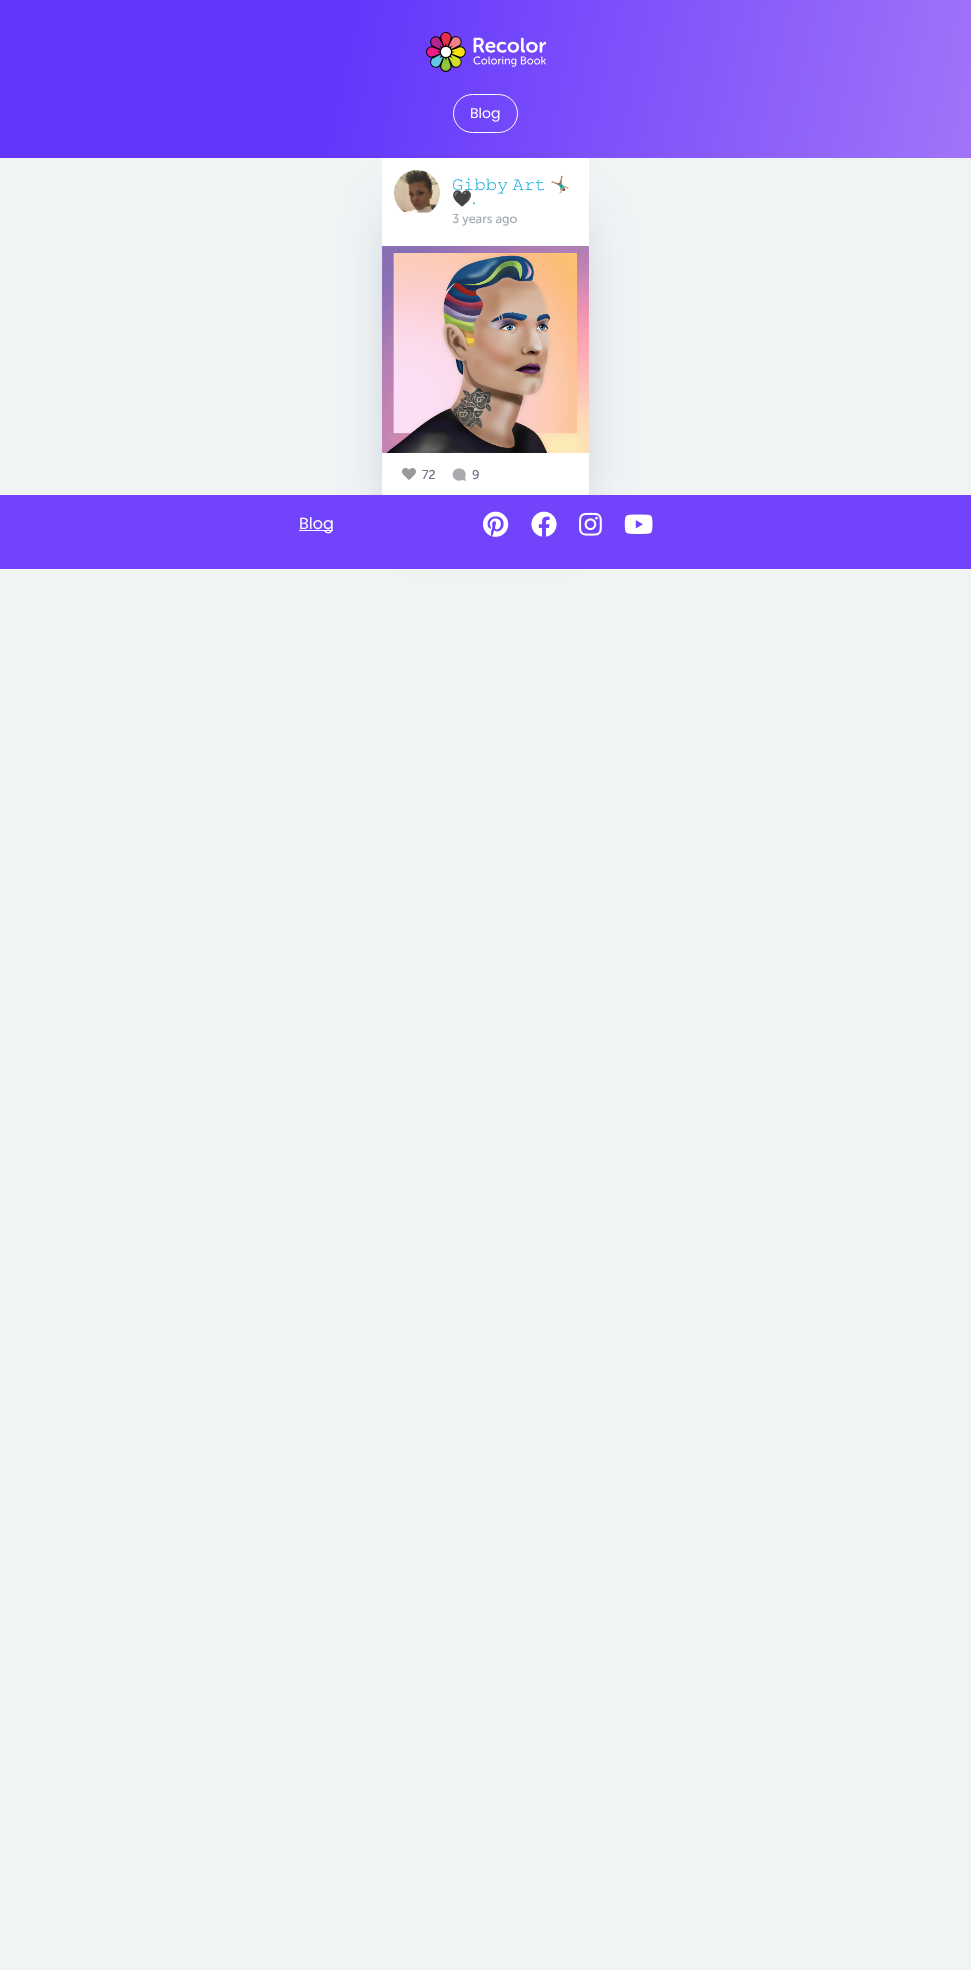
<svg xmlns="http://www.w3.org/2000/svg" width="971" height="1970">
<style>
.a{font:14px Poppins;fill:#fff}
.b{font:16px FreeSerif;fill:#0ba7d5}
.c{font:16px Noto Color Emoji;fill:#0ba7d5}
.d{font:12.75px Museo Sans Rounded;fill:#a2a8b5}
.e{font:12.75px Museo Sans Rounded;fill:#6b7386}
.f{font:16px Poppins;fill:#fff}
</style>
<defs>
<linearGradient id="g1" gradientUnits="userSpaceOnUse" x1="4.9" y1="-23" x2="966" y2="181"><stop offset="0.35" stop-color="#6336fc"/><stop offset="1" stop-color="#a075f8"/></linearGradient>
</defs>
<rect width="100%" height="100%" fill="#f1f4f5"/>
<path fill="url(#g1)" d="M0 0h971v158H0z"/>
<image href="1.png" x="426" y="32" width="120" height="40"/>
<path fill="#0e33654d" filter="blur(30px)" d="M402 218h167v297H402z"/>
<rect fill="none" stroke="#fff" x="453.5" y="94.5" width="64" height="38" rx="19"/>
<rect fill="#fff" x="382" y="158" width="207" height="337" rx="2"/>
<image href="2.png" x="394" y="170" width="46" height="45"/>
<image href="3.png" x="382" y="246" width="207" height="207"/>
<image href="4.png" x="402" y="468" width="14" height="12"/>
<image href="5.png" x="452" y="468" width="14" height="13"/>
<path fill="#7144fb" d="M0 495h971v74H0z"/>
<path fill="#fff" d="M299 530h34v1H299z"/>
<image href="6.png" x="483" y="511" width="26" height="26"/>
<image href="7.png" x="531" y="511" width="26" height="26"/>
<image href="8.png" x="579" y="512" width="23" height="24"/>
<image href="9.png" x="624" y="514" width="29" height="20"/>
<text class="a" x="470" y="118">Blog</text>
<text class="b" x="452" y="190">𝙶𝚒𝚋𝚋𝚢 𝙰𝚛𝚝</text>
<text class="c" x="550" y="190">🤸🏽‍♂️</text>
<text class="c" x="452" y="204">🖤</text>
<text class="b" x="472" y="204">.</text>
<text class="d" x="452" y="223">3 years ago</text>
<text class="e" x="422" y="479">72</text>
<text class="e" x="472" y="479">9</text>
<text class="f" x="299" y="529">Blog</text>
</svg>
